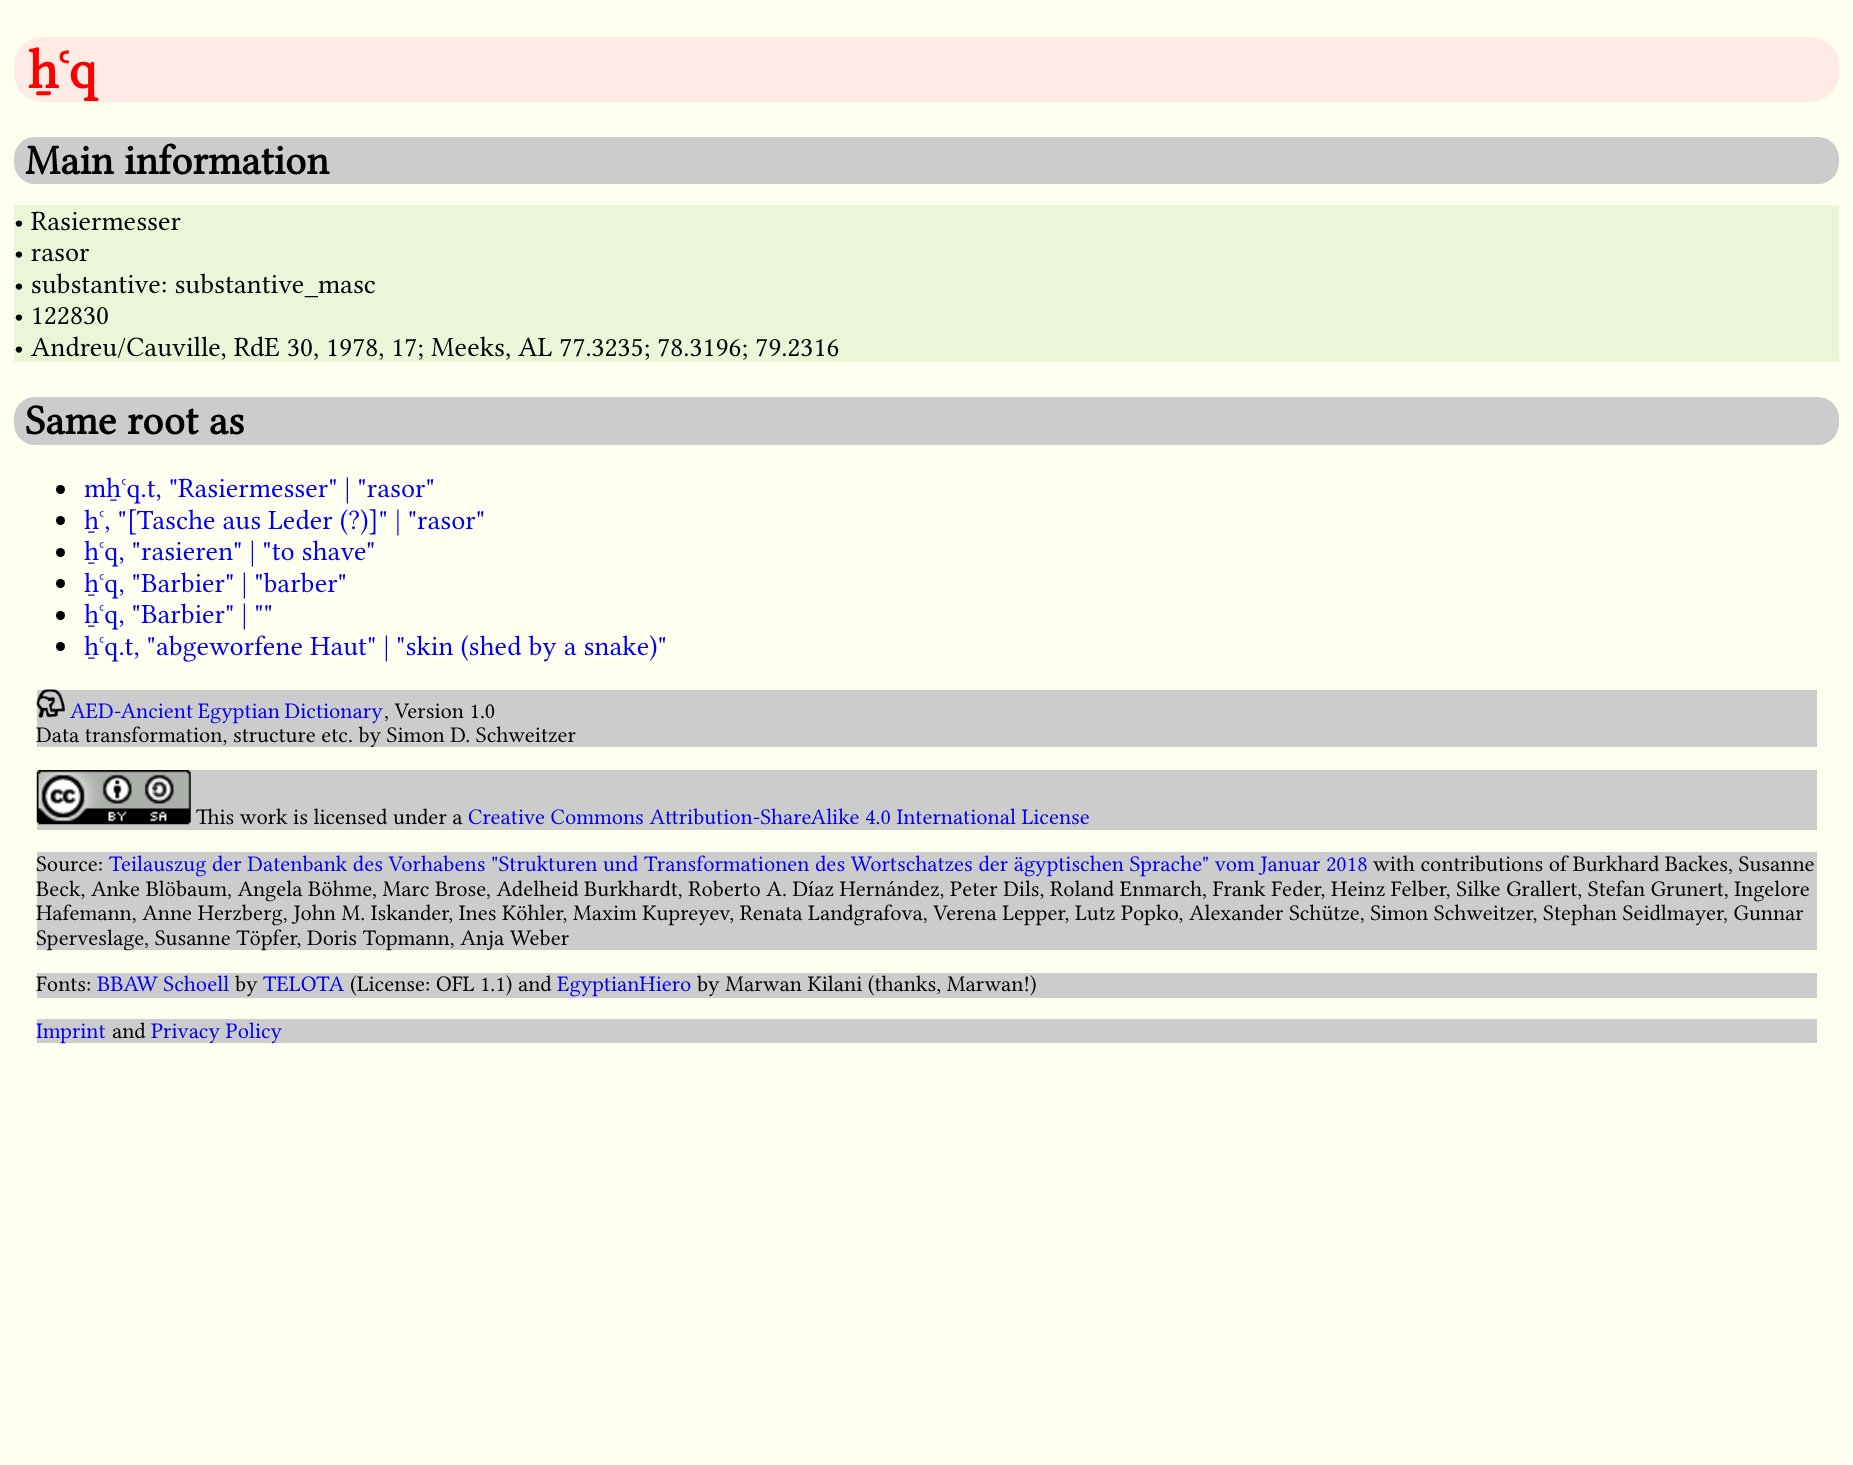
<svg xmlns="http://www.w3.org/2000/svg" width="1853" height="1465">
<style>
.a{font:bold 56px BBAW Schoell;fill:#f00}
.b{font:bold 42px BBAW Schoell;fill:#000}
.c{font:28px BBAW Schoell;fill:#000}
.d{font:28px BBAW Schoell;fill:#00e}
.e{font:22.4px BBAW Schoell;fill:#00e}
.f{font:22.4px BBAW Schoell;fill:#000}
</style>
<rect width="100%" height="100%" fill="#fffff0"/>
<rect fill="#ffebe6" x="14" y="37" width="1825" height="65" rx="28"/>
<rect fill="#ccc" x="14" y="137" width="1825" height="47" rx="21"/>
<path fill="#ebf5d7" d="M14 205h1825v157H14z"/>
<rect fill="#ccc" x="14" y="397" width="1825" height="48" rx="21"/>
<circle fill="#000" cx="60.5" cy="489.5" r="4.5"/>
<circle fill="#000" cx="60.5" cy="520.5" r="4.5"/>
<circle fill="#000" cx="60.5" cy="552.5" r="4.5"/>
<circle fill="#000" cx="60.5" cy="583.5" r="4.5"/>
<circle fill="#000" cx="60.5" cy="615.5" r="4.5"/>
<circle fill="#000" cx="60.5" cy="646.5" r="4.5"/>
<path fill="#ccc" d="M37 690h1780v57H37z"/>
<image href="1.png" x="36" y="689" width="29" height="29"/>
<path fill="#ccc" d="M37 770h1780v60H37z"/>
<image href="2.png" x="36" y="770" width="155" height="55"/>
<path fill="#ccc" d="M37 852h1780v98H37z"/>
<path fill="#ccc" d="M37 973h1780v25H37z"/>
<path fill="#ccc" d="M37 1019h1780v24H37z"/>
<text class="a" x="28" y="88">ẖꜥq</text>
<text class="b" x="25" y="174">Main information</text>
<text class="c" x="14" y="230">• Rasiermesser</text>
<text class="c" x="14" y="261">• rasor</text>
<text class="c" x="14" y="293">• substantive: substantive_masc</text>
<text class="c" x="14" y="324">• 122830</text>
<text class="c" x="14" y="356">• Andreu/Cauville, RdE 30, 1978, 17; Meeks, AL 77.3235; 78.3196; 79.2316</text>
<text class="b" x="25" y="434">Same root as</text>
<text class="d" x="84" y="497">mẖꜥq.t, "Rasiermesser" | "rasor"</text>
<text class="d" x="84" y="529">ẖꜥ, "[Tasche aus Leder (?)]" | "rasor"</text>
<text class="d" x="84" y="560">ẖꜥq, "rasieren" | "to shave"</text>
<text class="d" x="84" y="592">ẖꜥq, "Barbier" | "barber"</text>
<text class="d" x="84" y="623">ẖꜥq, "Barbier" | ""</text>
<text class="d" x="84" y="655">ẖꜥq.t, "abgeworfene Haut" | "skin (shed by a snake)"</text>
<text class="e" x="70" y="718" word-spacing="-1">AED-Ancient Egyptian Dictionary</text>
<text class="f" x="384" y="718">, Version 1.0</text>
<text class="f" x="36" y="742">Data transformation, structure etc. by Simon D. Schweitzer</text>
<text class="f" x="196" y="824">This work is licensed under a</text>
<text class="e" x="468" y="824">Creative Commons Attribution-ShareAlike 4.0 International License</text>
<text class="f" x="36" y="871">Source:</text>
<text class="e" x="109" y="871">Teilauszug der Datenbank des Vorhabens "Strukturen und Transformationen des Wortschatzes der ägyptischen Sprache" vom Januar 2018</text>
<text class="f" x="1373" y="871">with contributions of Burkhard Backes, Susanne</text>
<text class="f" x="36" y="896">Beck, Anke Blöbaum, Angela Böhme, Marc Brose, Adelheid Burkhardt, Roberto A. Díaz Hernández, Peter Dils, Roland Enmarch, Frank Feder, Heinz Felber, Silke Grallert, Stefan Grunert, Ingelore</text>
<text class="f" x="36" y="920">Hafemann, Anne Herzberg, John M. Iskander, Ines Köhler, Maxim Kupreyev, Renata Landgrafova, Verena Lepper, Lutz Popko, Alexander Schütze, Simon Schweitzer, Stephan Seidlmayer, Gunnar</text>
<text class="f" x="36" y="945">Sperveslage, Susanne Töpfer, Doris Topmann, Anja Weber</text>
<text class="f" x="36" y="991">Fonts:</text>
<text class="e" x="97" y="991">BBAW Schoell</text>
<text class="f" x="235" y="991">by</text>
<text class="e" x="263" y="991">TELOTA</text>
<text class="f" x="350" y="991">(License: OFL 1.1) and</text>
<text class="e" x="557" y="991">EgyptianHiero</text>
<text class="f" x="697" y="991">by Marwan Kilani (thanks, Marwan!)</text>
<text class="e" x="36" y="1038">Imprint</text>
<text class="f" x="112" y="1038">and</text>
<text class="e" x="151" y="1038">Privacy Policy</text>
</svg>
